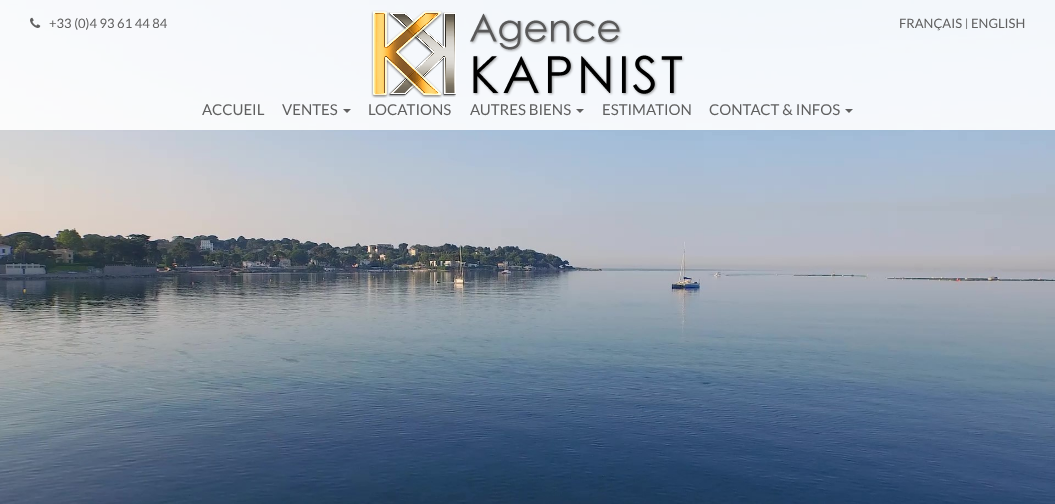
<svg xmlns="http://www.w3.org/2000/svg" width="1055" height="504">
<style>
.a{font:13px Lato;fill:#606060}
.b{font:11px Lato;fill:#606060}
.c{font:15px Lato;fill:#606060}
</style>
<rect width="100%" height="100%" fill="#fff"/>
<image href="1.png" x="0" y="0" width="1055" height="504"/>
<path fill="#ffffffe6" d="M0 0h1055v130H0z"/>
<image href="2.png" x="30" y="17" width="11" height="11"/>
<image href="3.png" x="371" y="10" width="314" height="88"/>
<path fill="#606060" d="M343 109h8l-4 4z"/>
<path fill="#606060" d="M576 109h8l-4 4z"/>
<path fill="#606060" d="M845 109h8l-4 4z"/>
<text class="a" x="49" y="28">+33 (0)4 93 61 44 84</text>
<text class="a" x="899" y="28">FRANÇAIS</text>
<text class="b" x="965" y="27">|</text>
<text class="a" x="971" y="28">ENGLISH</text>
<text class="c" x="202" y="115">ACCUEIL</text>
<text class="c" x="282" y="115">VENTES</text>
<text class="c" x="368" y="115">LOCATIONS</text>
<text class="c" x="470" y="115">AUTRES BIENS</text>
<text class="c" x="602" y="115">ESTIMATION</text>
<text class="c" x="709" y="115">CONTACT &amp; INFOS</text>
</svg>
